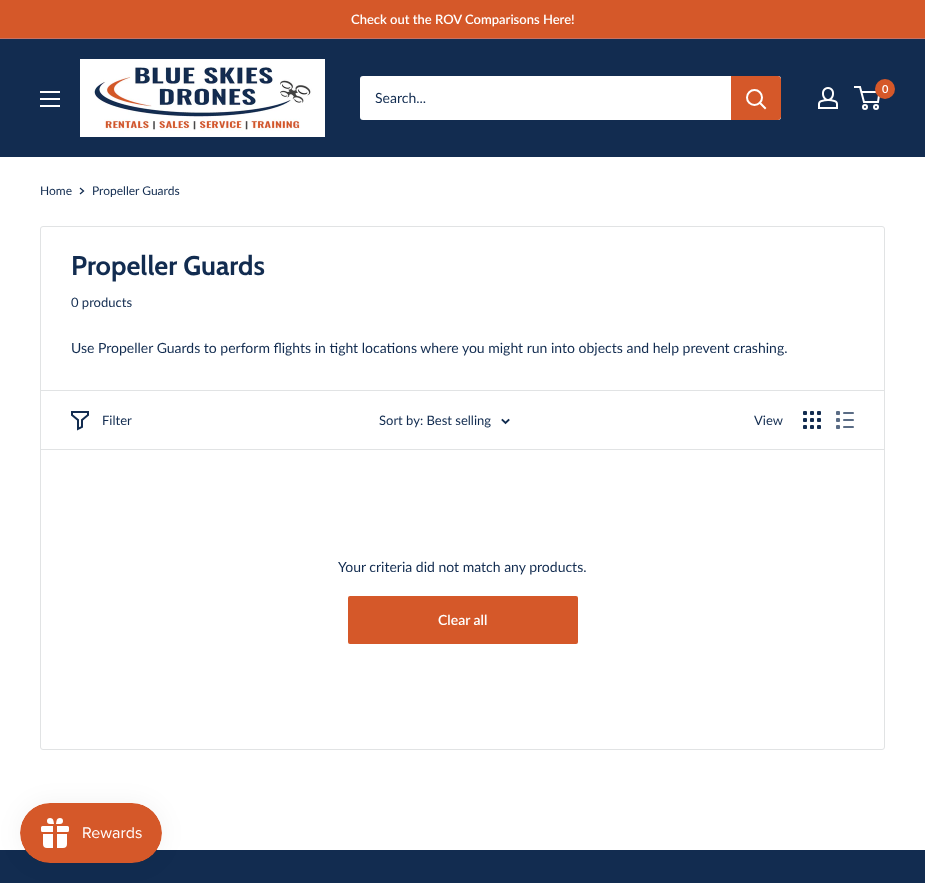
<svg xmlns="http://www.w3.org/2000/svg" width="925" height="883">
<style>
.a{font:600 13px Lato;fill:#fff}
.b{font:600 11px Lato;fill:#fff}
.c{font:14px Lato;fill:#122c50}
.d{font:12px Lato;fill:#122c50}
.e{font:bold 27px Cabin;fill:#122c50}
.f{font:13px Lato;fill:#122c50}
.g{font:600 14px Lato;fill:#fff}
</style>
<rect width="100%" height="100%" fill="#fff"/>
<path fill="#d55829" d="M0 0h925v38H0z"/>
<path fill="#c67264" d="M0 38h925v1H0z"/>
<path fill="#122c50" d="M0 39h925v118H0z"/>
<image href="1.png" x="80" y="59" width="245" height="78"/>
<image href="2.png" x="818" y="87" width="20" height="22"/>
<circle fill="none" stroke="#fff" stroke-width="2" cx="865" cy="107" r="2"/>
<circle fill="none" stroke="#fff" stroke-width="2" cx="876" cy="107" r="2"/>
<path fill="none" stroke="#fff" stroke-width="2" d="M861.5 92h18l-1.5 10h-14l-4-15h-6"/>
<circle fill="#d55829" cx="885" cy="89" r="10"/>
<image href="3.png" x="40" y="91" width="20" height="16"/>
<rect fill="#fff" x="360" y="76" width="421" height="44" rx="3"/>
<path fill="#d55829" d="M731 76h47c1.5 0 3 1.5 3 3v38c0 1.5-1.5 3-3 3h-47z"/>
<path fill="none" stroke="#fff" stroke-width="2" stroke-linecap="square" d="M765 108l-5-5"/>
<circle fill="none" stroke="#fff" stroke-width="2" cx="754.5" cy="97.5" r="7.5"/>
<path fill="none" stroke="#122c50" stroke-width="1.3" stroke-linecap="square" d="M80.5 188.5l3 2.5l-3 2.5"/>
<rect fill="none" stroke="#e1e3e4" x="40.5" y="226.5" width="844" height="523" rx="2.5"/>
<path fill="#e1e3e4" d="M41 390h843v1H41z"/>
<path fill="#e1e3e4" d="M41 449h843v1H41z"/>
<path fill="none" stroke="#122c50" stroke-width="2" stroke-linecap="square" d="M88 415l-6 5v7l-4 2v-9l-6-5v-3h16z"/>
<path fill="none" stroke="#122c50" stroke-width="1.9" stroke-linecap="square" d="M508.5 420l-3 3l-3-3"/>
<image href="4.png" x="803" y="411" width="18" height="18"/>
<image href="5.png" x="836" y="411" width="18" height="18"/>
<rect fill="#d55829" x="348" y="596" width="230" height="48" rx="2"/>
<path fill="#122c50" d="M0 850h925v33H0z"/>
<rect fill="#0000000d" filter="blur(12.5px)" x="20" y="803" width="142" height="60" rx="30"/>
<image href="6.png" x="20" y="803" width="142" height="60"/>
<text class="a" x="351" y="24">Check out the ROV Comparisons Here!</text>
<text class="b" x="882" y="93">0</text>
<text class="c" x="375" y="103">Search...</text>
<text class="d" x="40" y="195">Home</text>
<text class="d" x="92" y="195">Propeller Guards</text>
<text class="e" x="71" y="275">Propeller Guards</text>
<text class="f" x="71" y="307">0 products</text>
<text class="c" x="71" y="353">Use Propeller Guards to perform flights in tight locations where you might run into objects and help prevent crashing.</text>
<text class="f" x="102" y="425">Filter</text>
<text class="f" x="379" y="425">Sort by: Best selling</text>
<text class="f" x="754" y="425">View</text>
<text class="c" x="338" y="572">Your criteria did not match any products.</text>
<text class="g" x="438" y="625">Clear all</text>
</svg>
